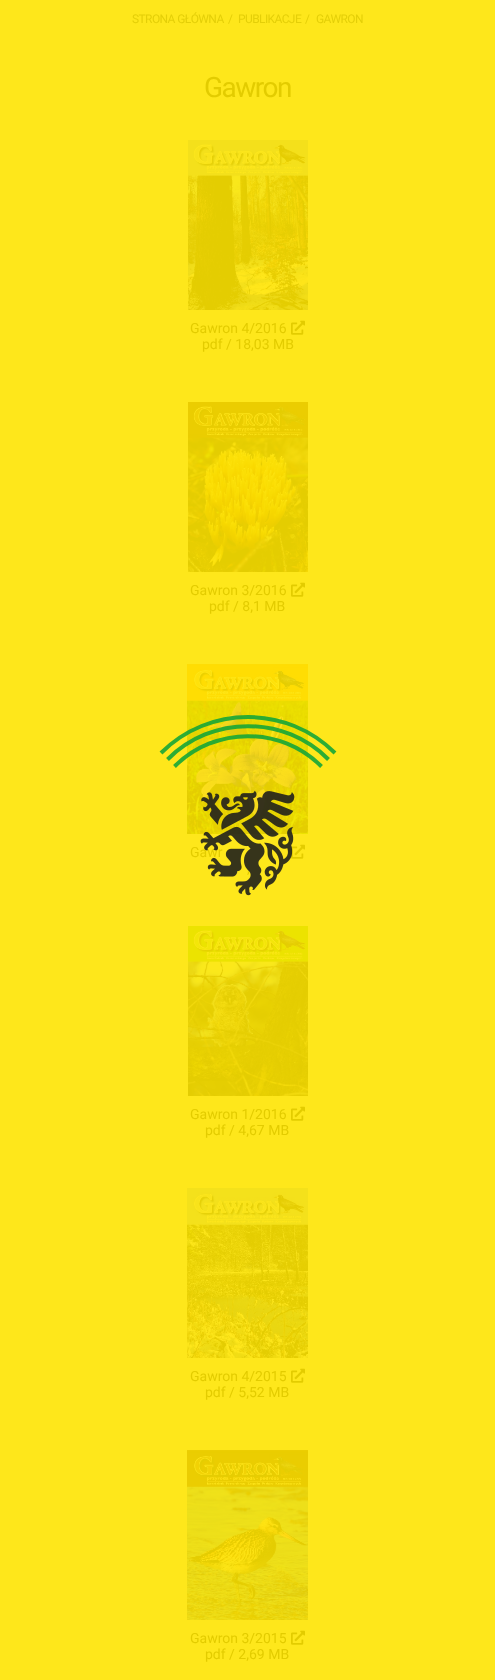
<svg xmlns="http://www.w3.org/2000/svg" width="495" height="1680">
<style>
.a{font:12px Roboto;letter-spacing:-0.6px;fill:#e4cf08}
.b{font:28px Roboto;letter-spacing:-1.5px;fill:#e3cc00}
.c{font:14px Roboto;fill:#e3cc00}
</style>
<rect width="100%" height="100%" fill="#fee71b"/>
<image href="1.png" x="188" y="140" width="120" height="170"/>
<image href="2.png" x="291" y="320" width="14" height="15"/>
<image href="3.png" x="188" y="402" width="120" height="170"/>
<image href="2.png" x="291" y="582" width="14" height="15"/>
<image href="4.png" x="187" y="664" width="121" height="170"/>
<image href="2.png" x="291" y="844" width="14" height="15"/>
<image href="5.png" x="188" y="926" width="120" height="170"/>
<image href="2.png" x="291" y="1106" width="14" height="15"/>
<image href="6.png" x="187" y="1188" width="121" height="170"/>
<image href="2.png" x="291" y="1368" width="14" height="15"/>
<image href="7.png" x="187" y="1450" width="121" height="170"/>
<image href="2.png" x="291" y="1630" width="14" height="15"/>
<path fill="none" stroke="#13a538e3" stroke-width="4" d="M161 753c48-48 126-48 174 0"/>
<path fill="none" stroke="#13a538e3" stroke-width="4" d="M167.5 759.5c44-44.5 117-44.5 161 0"/>
<path fill="none" stroke="#13a538e3" stroke-width="4" d="M174.5 766.5c40.5-40.5 106.5-40.5 147 0"/>
<text class="a" x="132" y="23">STRONA GŁÓWNA</text>
<text class="a" x="228" y="23">/</text>
<text class="a" x="238" y="23">PUBLIKACJE</text>
<text class="a" x="305" y="23">/</text>
<text class="a" x="316" y="23">GAWRON</text>
<text class="b" x="204" y="97">Gawron</text>
<text class="c" x="190" y="333">Gawron 4/2016</text>
<text class="c" x="202" y="349">pdf / 18,03 MB</text>
<text class="c" x="190" y="595">Gawron 3/2016</text>
<text class="c" x="209" y="611">pdf / 8,1 MB</text>
<text class="c" x="190" y="857">Gawr</text>
<text class="c" x="247" y="873">,</text>
<text class="c" x="190" y="1119">Gawron 1/2016</text>
<text class="c" x="205" y="1135">pdf / 4,67 MB</text>
<text class="c" x="190" y="1381">Gawron 4/2015</text>
<text class="c" x="205" y="1397">pdf / 5,52 MB</text>
<text class="c" x="190" y="1643">Gawron 3/2015</text>
<text class="c" x="205" y="1659">pdf / 2,69 MB</text>
<image href="8.png" x="200" y="790" width="95" height="106"/>
</svg>
